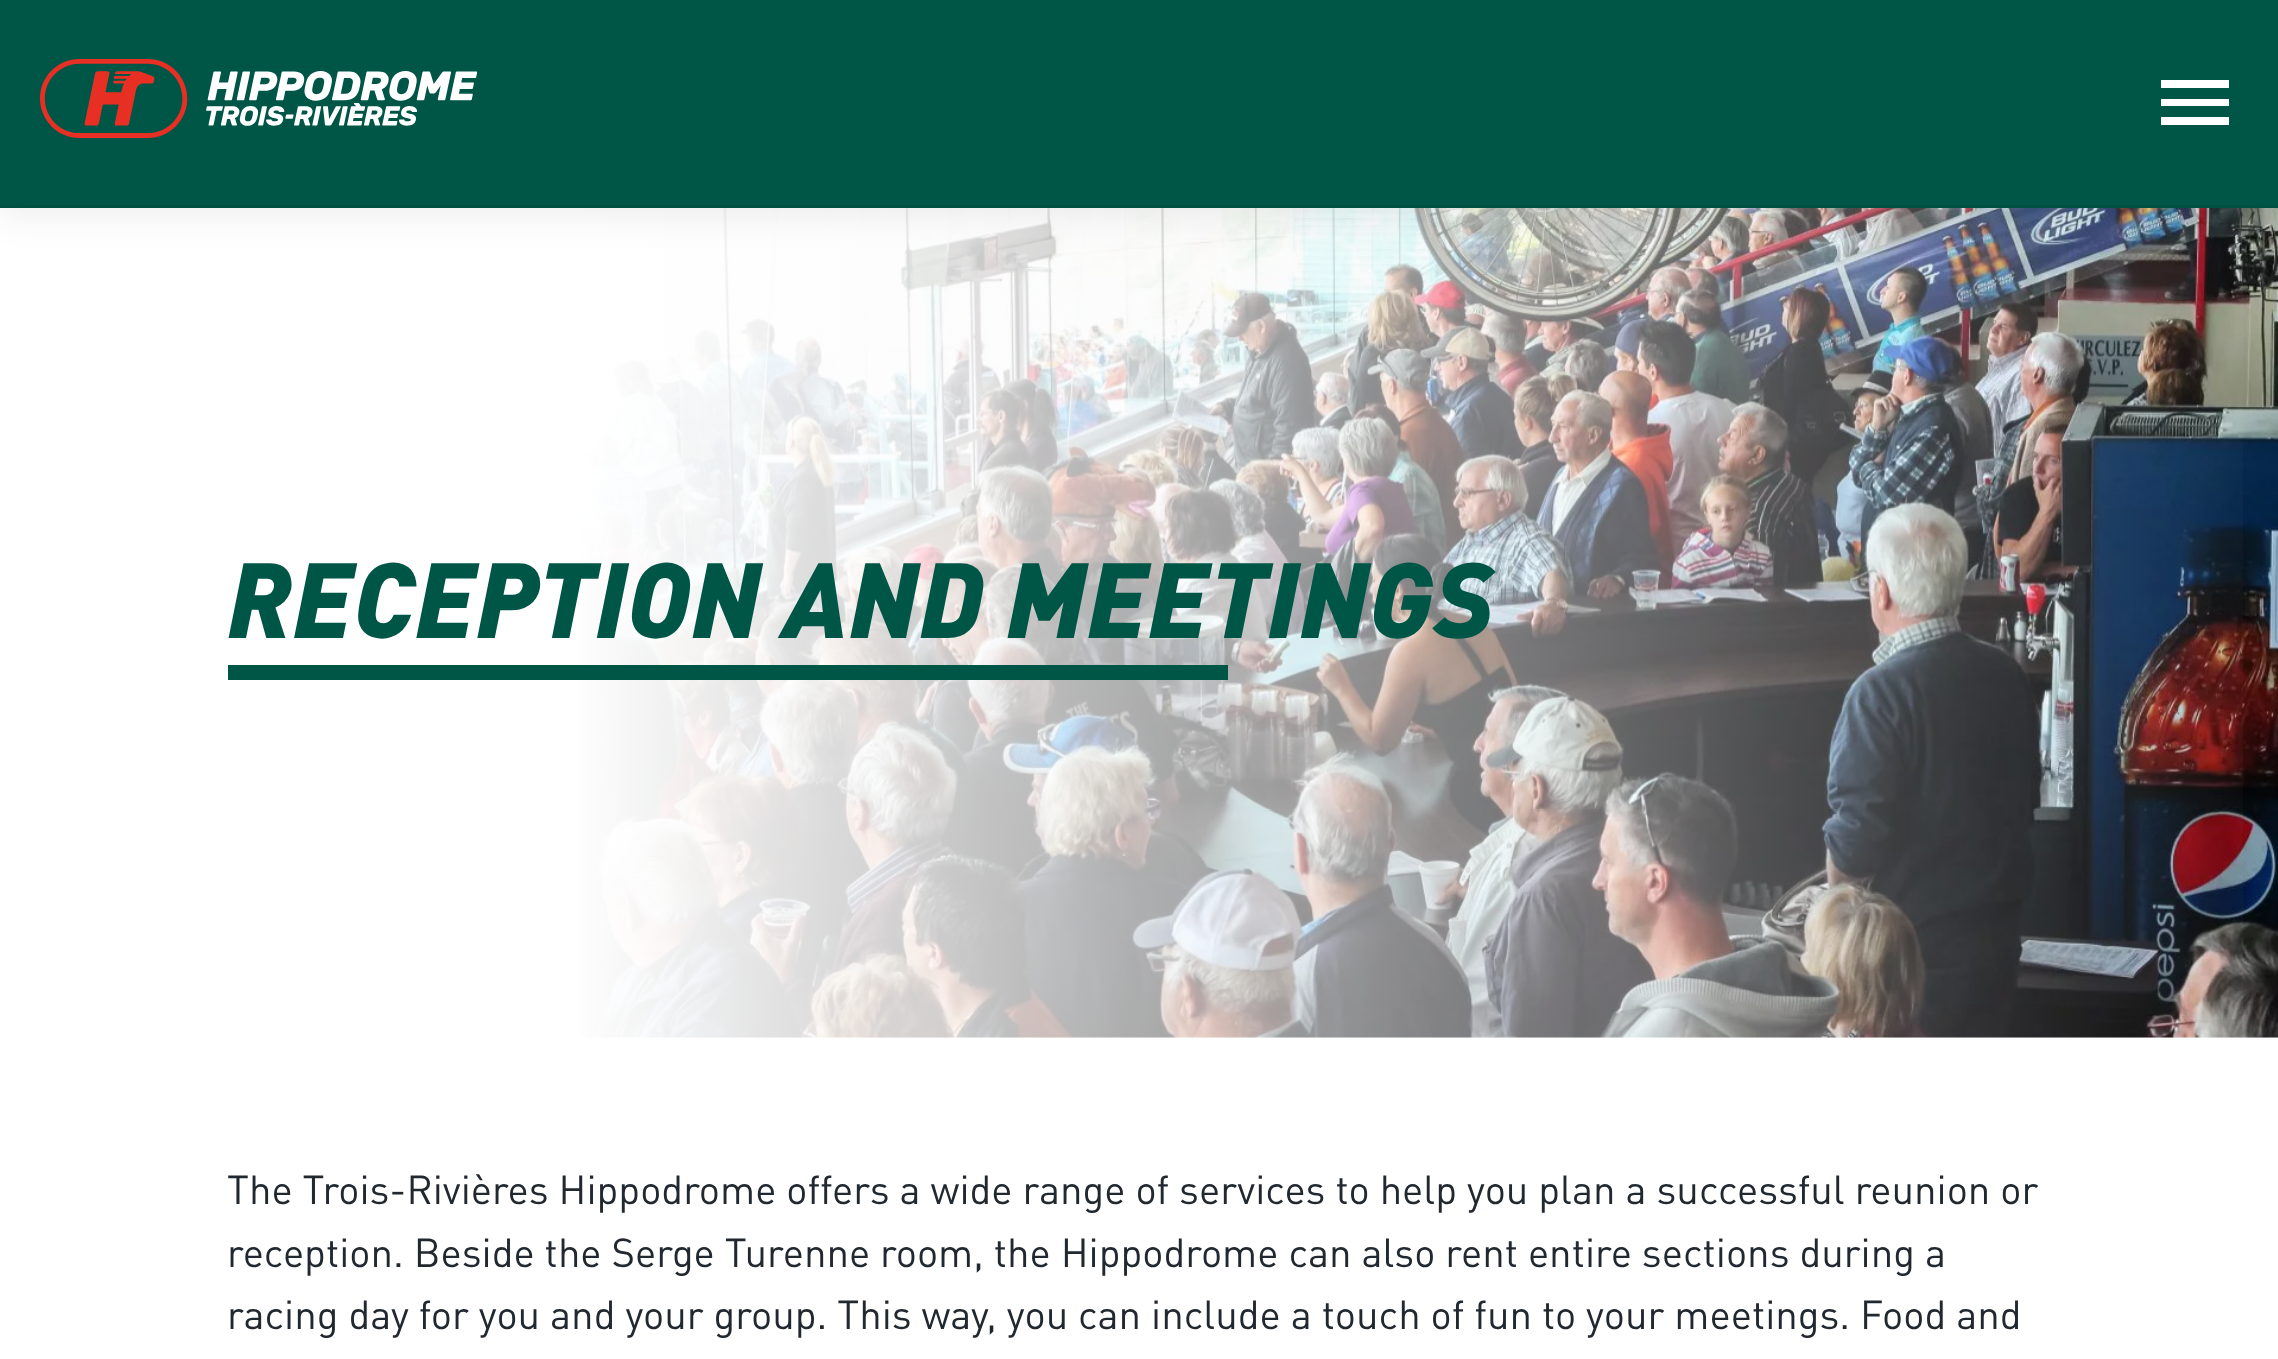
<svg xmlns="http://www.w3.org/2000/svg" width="2278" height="1359">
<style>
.a{font:italic 900 105px 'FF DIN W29';fill:#005646}
.b{font:40px 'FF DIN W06';fill:#22282f}
</style>
<defs>
<linearGradient id="g1" gradientUnits="userSpaceOnUse" x1="570" y1="621" x2="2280" y2="621"><stop offset="0" stop-color="#fff"/><stop offset="1" stop-color="#fff" stop-opacity="0"/></linearGradient>
</defs>
<rect width="100%" height="100%" fill="#fff"/>
<path fill="#005646" d="M0 205h2278v3H0z"/>
<image href="2.png" x="580" y="208" width="1698" height="830"/>
<path fill="url(#g1)" d="M580 208h1663v830H580z"/>
<path fill="#00000014" filter="blur(19px)" d="M0 8h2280v205H0z"/>
<path fill="#005646" d="M0 0h2278v205H0z"/>
<image href="1.png" x="40" y="59" width="438" height="79"/>
<path fill="#fff" d="M2161 80h68v8h-68zm0 26v-7h68v7zm0 19v-8h68v8z"/>
<path fill="#005646" d="M228 665h1000v15H228z"/>
<text class="a" x="227" y="638">RECEPTION AND MEETINGS</text>
<text class="b" x="227" y="1204">The Trois-Rivières Hippodrome offers a wide range of services to help you plan a successful reunion or</text>
<text class="b" x="227" y="1267">reception. Beside the Serge Turenne room, the Hippodrome can also rent entire sections during a</text>
<text class="b" x="227" y="1329">racing day for you and your group. This way, you can include a touch of fun to your meetings. Food and</text>
</svg>
